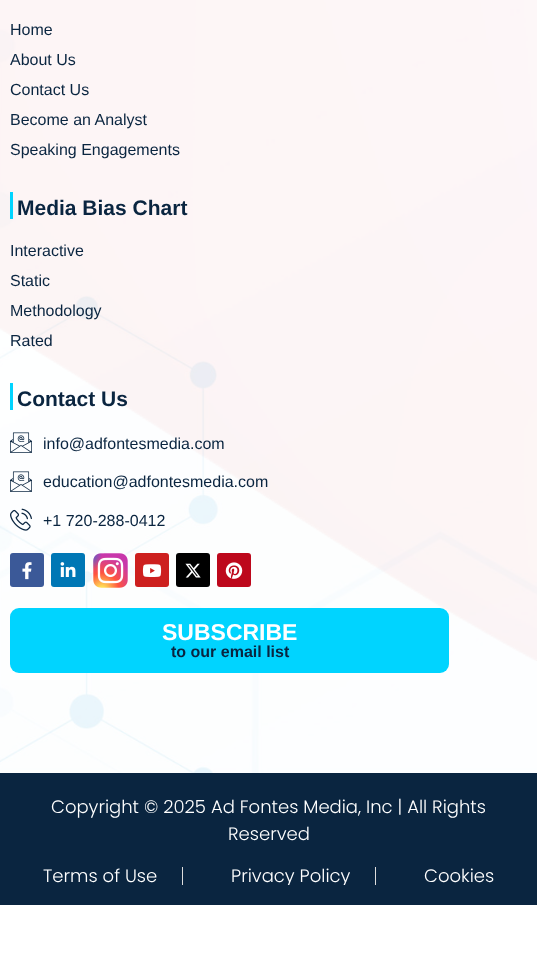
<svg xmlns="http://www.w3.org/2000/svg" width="537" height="975">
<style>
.a{font:16px Liberation Sans;fill:#0a2540}
.b{font:bold 21px Liberation Sans;fill:#0a2540}
.c{font:bold 23px Liberation Sans;fill:#fff}
.d{font:bold 16px Liberation Sans;fill:#0a2540}
.e{font:300 18px Poppins;fill:#fff}
</style>
<defs>
<clipPath id="clip1"><path d="M10 867h517v18H10z"/></clipPath>
</defs>
<rect width="100%" height="100%" fill="#fff"/>
<image href="1.png" x="0" y="0" width="537" height="773"/>
<image href="2.png" x="0" y="0" width="537" height="661"/>
<path fill="#00d4ff" d="M10 192h3v27H10z"/>
<path fill="#00d4ff" d="M10 383h3v27H10z"/>
<image href="3.png" x="10" y="432" width="22" height="21"/>
<image href="3.png" x="10" y="471" width="22" height="21"/>
<image href="4.png" x="10" y="508" width="22" height="23"/>
<rect fill="#3b5998" x="10" y="553" width="34" height="34" rx="3"/>
<image href="5.png" x="22" y="562" width="10" height="18"/>
<rect fill="#0077b5" x="51" y="553" width="34" height="34" rx="3"/>
<image href="6.png" x="60" y="562" width="16" height="15"/>
<image href="7.png" x="93" y="553" width="35" height="35"/>
<rect fill="#cd201f" x="135" y="553" width="34" height="34" rx="3"/>
<image href="8.png" x="142" y="564" width="20" height="13"/>
<rect fill="#000" x="176" y="553" width="34" height="34" rx="3"/>
<image href="9.png" x="185" y="563" width="16" height="15"/>
<rect fill="#bd081c" x="217" y="553" width="34" height="34" rx="3"/>
<image href="10.png" x="225" y="562" width="18" height="17"/>
<rect fill="#00d4ff" x="10" y="608" width="439" height="65" rx="9"/>
<path fill="#0a2540" d="M0 773h537v132H0z"/>
<path fill="#ddd" d="M182 867h1v18H182z"/>
<path fill="#ddd" d="M375 867h1v18H375z"/>
<text class="a" x="10" y="35">Home</text>
<text class="a" x="10" y="65">About Us</text>
<text class="a" x="10" y="95">Contact Us</text>
<text class="a" x="10" y="125">Become an Analyst</text>
<text class="a" x="10" y="155">Speaking Engagements</text>
<text class="b" x="17" y="215">Media Bias Chart</text>
<text class="a" x="10" y="256">Interactive</text>
<text class="a" x="10" y="286">Static</text>
<text class="a" x="10" y="316">Methodology</text>
<text class="a" x="10" y="346">Rated</text>
<text class="b" x="17" y="406">Contact Us</text>
<text class="a" x="43" y="449">info@adfontesmedia.com</text>
<text class="a" x="43" y="487">education@adfontesmedia.com</text>
<text class="a" x="43" y="526">+1 720-288-0412</text>
<text class="c" x="162" y="640">SUBSCRIBE</text>
<text class="d" x="171" y="657">to our email list</text>
<text class="e" x="51" y="813">Copyright © 2025 Ad Fontes Media, Inc | All Rights</text>
<text class="e" x="228" y="840">Reserved</text>
<text class="e" x="43" y="882">Terms of Use</text>
<g clip-path="url(#clip1)">
<text class="e" x="231" y="882">Privacy Policy</text>
</g>
<text class="e" x="424" y="882">Cookies</text>
</svg>
